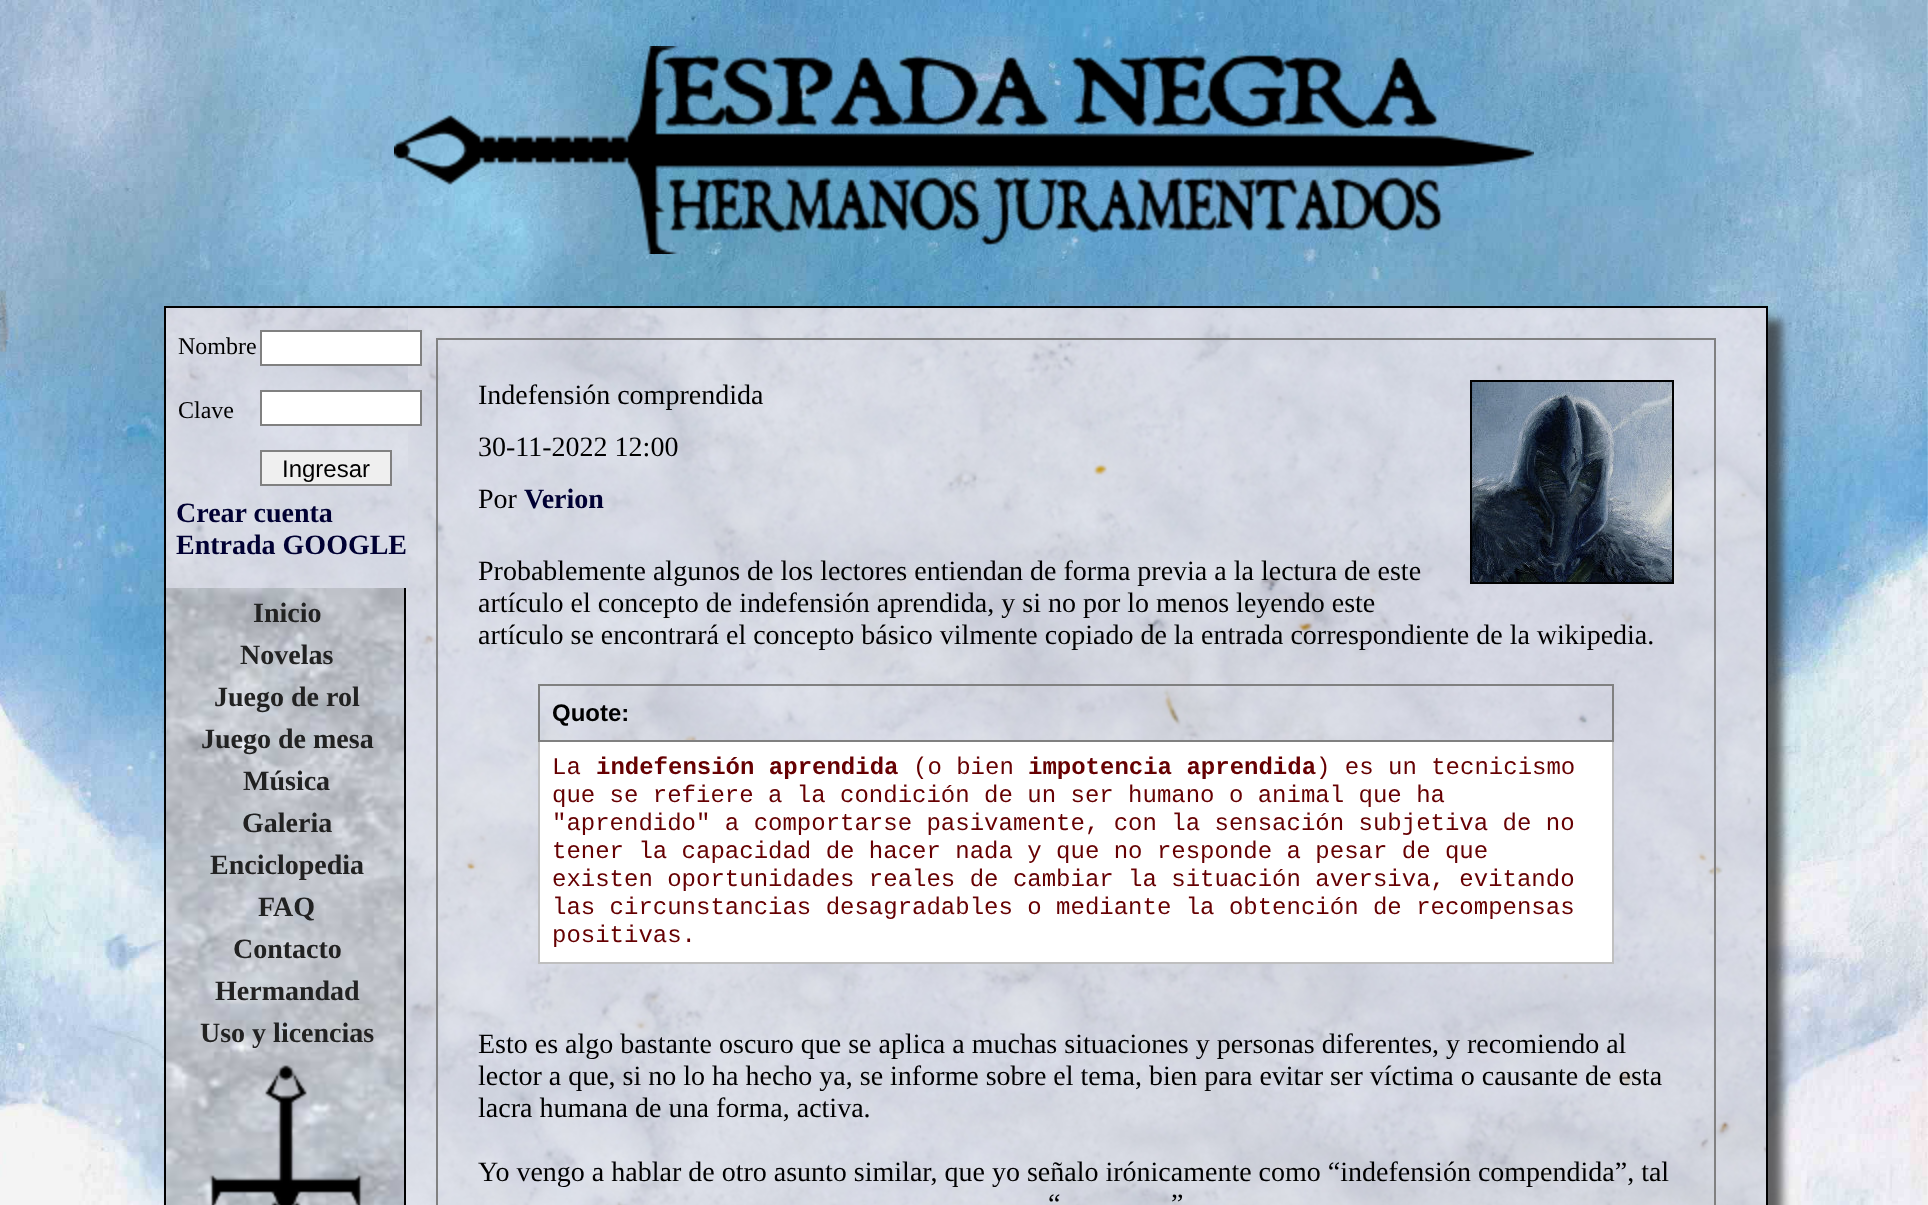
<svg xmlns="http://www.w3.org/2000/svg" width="1928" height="1205">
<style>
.a{font:24px Liberation Serif;fill:#000}
.b{font:24px Liberation Sans;fill:#000}
.c{font:bold 28px Liberation Serif;fill:#003}
.d{font:28px Liberation Serif;fill:#000}
.e{font:bold 24px Liberation Sans;fill:#000}
.f{font:24px Liberation Mono;fill:#660002}
.g{font:bold 24px Liberation Mono;fill:#660002}
.h{font:bold 28px Liberation Serif;fill:#222}
</style>
<rect width="100%" height="100%" fill="#fff"/>
<image href="1.png" x="0" y="0" width="1928" height="1205"/>
<image href="2.png" x="394" y="46" width="1140" height="208"/>
<image href="6.png" x="166" y="588" width="238" height="617"/>
<path fill="none" stroke="#000" stroke-width="2" d="M165 587h244v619H165z"/>
<path fill="#323232bf" filter="blur(5px)" d="M418 320h1364v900H418z"/>
<image href="4.png" x="406" y="308" width="1360" height="897"/>
<path fill="none" stroke="#000" stroke-width="2" d="M405 307h1362v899H405z"/>
<image href="3.png" x="166" y="308" width="242" height="280"/>
<path fill="#000" d="M164 306h244v2H164z"/>
<path fill="#000" d="M164 306h2v282H164z"/>
<path fill="#fff" stroke="#808080" stroke-width="2" d="M261 331h160v34H261z"/>
<path fill="#fff" stroke="#808080" stroke-width="2" d="M261 391h160v34H261z"/>
<path fill="#efefef" stroke="#808080" stroke-width="2" d="M261 451h130v34H261z"/>
<path fill="none" stroke="#808080" stroke-width="2" d="M437 339h1278v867H437z"/>
<path fill="none" stroke="#000" stroke-width="2" d="M1471 381h202v202H1471z"/>
<image href="5.png" x="1472" y="382" width="200" height="200"/>
<path fill="#808080" d="M538 684h1076v2H538z"/>
<path fill="#808080" d="M538 684h2v58H538z"/>
<path fill="#bfbfbf" d="M1612 740h2v224H1612z"/>
<path fill="#808080" d="M1612 684h2v58H1612z"/>
<path fill="#bfbfbf" d="M538 962h1076v2H538z"/>
<path fill="#bfbfbf" d="M538 740h2v224H538z"/>
<path fill="#808080" d="M538 740h1076v2H538z"/>
<path fill="#fff" d="M540 742h1072v220H540z"/>
<image href="7.png" x="209" y="1065" width="154" height="140"/>
<text class="a" x="178" y="354">Nombre</text>
<text class="a" x="178" y="418">Clave</text>
<text class="b" x="282" y="477">Ingresar</text>
<text class="c" x="176" y="522">Crear cuenta</text>
<text class="c" x="176" y="554">Entrada GOOGLE</text>
<text class="d" x="478" y="404">Indefensión comprendida</text>
<text class="d" x="478" y="456">30-11-2022 12:00</text>
<text class="d" x="478" y="508">Por</text>
<text class="c" x="524" y="508">Verion</text>
<text class="d" x="478" y="580">Probablemente algunos de los lectores entiendan de forma previa a la lectura de este</text>
<text class="d" x="478" y="612">artículo el concepto de indefensión aprendida, y si no por lo menos leyendo este</text>
<text class="d" x="478" y="644">artículo se encontrará el concepto básico vilmente copiado de la entrada correspondiente de la wikipedia.</text>
<text class="e" x="552" y="721">Quote:</text>
<text class="f" x="552" y="774">La</text>
<text class="g" x="596" y="774">indefensión aprendida</text>
<text class="f" x="913" y="774">(o bien</text>
<text class="g" x="1028" y="774">impotencia aprendida</text>
<text class="f" x="1316" y="774">) es un tecnicismo</text>
<text class="f" x="552" y="802">que se refiere a la condición de un ser humano o animal que ha</text>
<text class="f" x="552" y="830">"aprendido" a comportarse pasivamente, con la sensación subjetiva de no</text>
<text class="f" x="552" y="858">tener la capacidad de hacer nada y que no responde a pesar de que</text>
<text class="f" x="552" y="886">existen oportunidades reales de cambiar la situación aversiva, evitando</text>
<text class="f" x="552" y="914">las circunstancias desagradables o mediante la obtención de recompensas</text>
<text class="f" x="552" y="942">positivas.</text>
<text class="d" x="478" y="1053">Esto es algo bastante oscuro que se aplica a muchas situaciones y personas diferentes, y recomiendo al</text>
<text class="d" x="478" y="1085">lector a que, si no lo ha hecho ya, se informe sobre el tema, bien para evitar ser víctima o causante de esta</text>
<text class="d" x="478" y="1117">lacra humana de una forma, activa.</text>
<text class="d" x="478" y="1181">Yo vengo a hablar de otro asunto similar, que yo señalo irónicamente como “indefensión compendida”, tal</text>
<text class="d" x="1048" y="1213">“</text>
<text class="d" x="1171" y="1213">”</text>
<text class="h" x="253" y="622">Inicio</text>
<text class="h" x="240" y="664">Novelas</text>
<text class="h" x="214" y="706">Juego de rol</text>
<text class="h" x="201" y="748">Juego de mesa</text>
<text class="h" x="243" y="790">Música</text>
<text class="h" x="242" y="832">Galeria</text>
<text class="h" x="210" y="874">Enciclopedia</text>
<text class="h" x="258" y="916">FAQ</text>
<text class="h" x="233" y="958">Contacto</text>
<text class="h" x="215" y="1000">Hermandad</text>
<text class="h" x="200" y="1042">Uso y licencias</text>
</svg>
